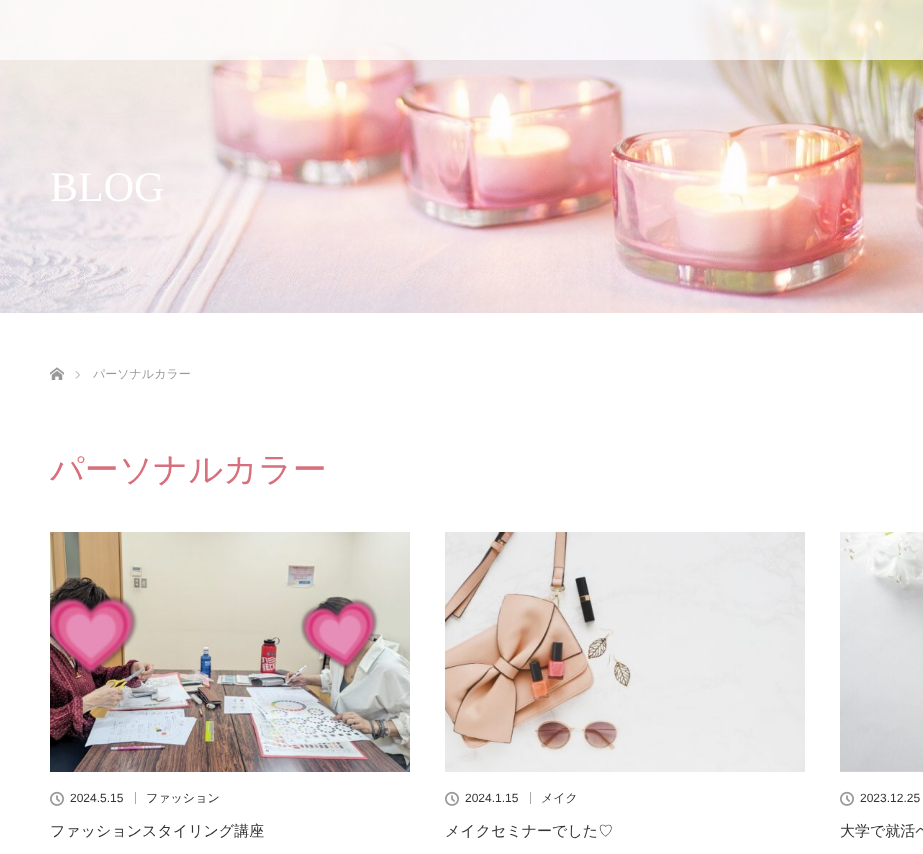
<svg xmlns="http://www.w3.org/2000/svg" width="923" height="854">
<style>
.a{font:42px Liberation Serif;fill:#fff}
.b{font:500 12px WenQuanYi Zen Hei;fill:#999}
.c{font:500 34px WenQuanYi Zen Hei;fill:#d86f7c}
.d{font:12px Liberation Sans;fill:#333}
.e{font:500 12px WenQuanYi Zen Hei;fill:#333}
.f{font:500 15px WenQuanYi Zen Hei;fill:#333}
</style>
<rect width="100%" height="100%" fill="#fff"/>
<image href="1.png" x="0" y="0" width="923" height="313"/>
<path fill="#ffffffb3" d="M0 0h923v60H0z"/>
<image href="2.png" x="50" y="367" width="14" height="13"/>
<image href="3.png" x="75" y="371" width="5" height="8"/>
<image href="4.png" x="50" y="532" width="360" height="240"/>
<image href="5.png" x="50" y="791" width="14" height="15"/>
<path fill="#aaa" d="M135 792h1v12H135z"/>
<image href="6.png" x="445" y="532" width="360" height="240"/>
<image href="5.png" x="445" y="791" width="14" height="15"/>
<path fill="#aaa" d="M530 792h1v12H530z"/>
<image href="7.png" x="840" y="532" width="83" height="240"/>
<image href="5.png" x="840" y="791" width="14" height="15"/>
<text class="a" x="50" y="201">BLOG</text>
<text class="b" x="93" y="378">パーソナルカラー</text>
<text class="c" x="50" y="481">パーソナルカラー</text>
<text class="d" x="70" y="802">2024.5.15</text>
<text class="e" x="146" y="802">ファッション</text>
<text class="f" x="50" y="836">ファッションスタイリング講座</text>
<text class="d" x="465" y="802">2024.1.15</text>
<text class="e" x="541" y="802">メイク</text>
<text class="f" x="445" y="836">メイクセミナーでした♡</text>
<text class="d" x="860" y="802">2023.12.25</text>
<text class="f" x="840" y="836">大学で就活ヘ</text>
</svg>
